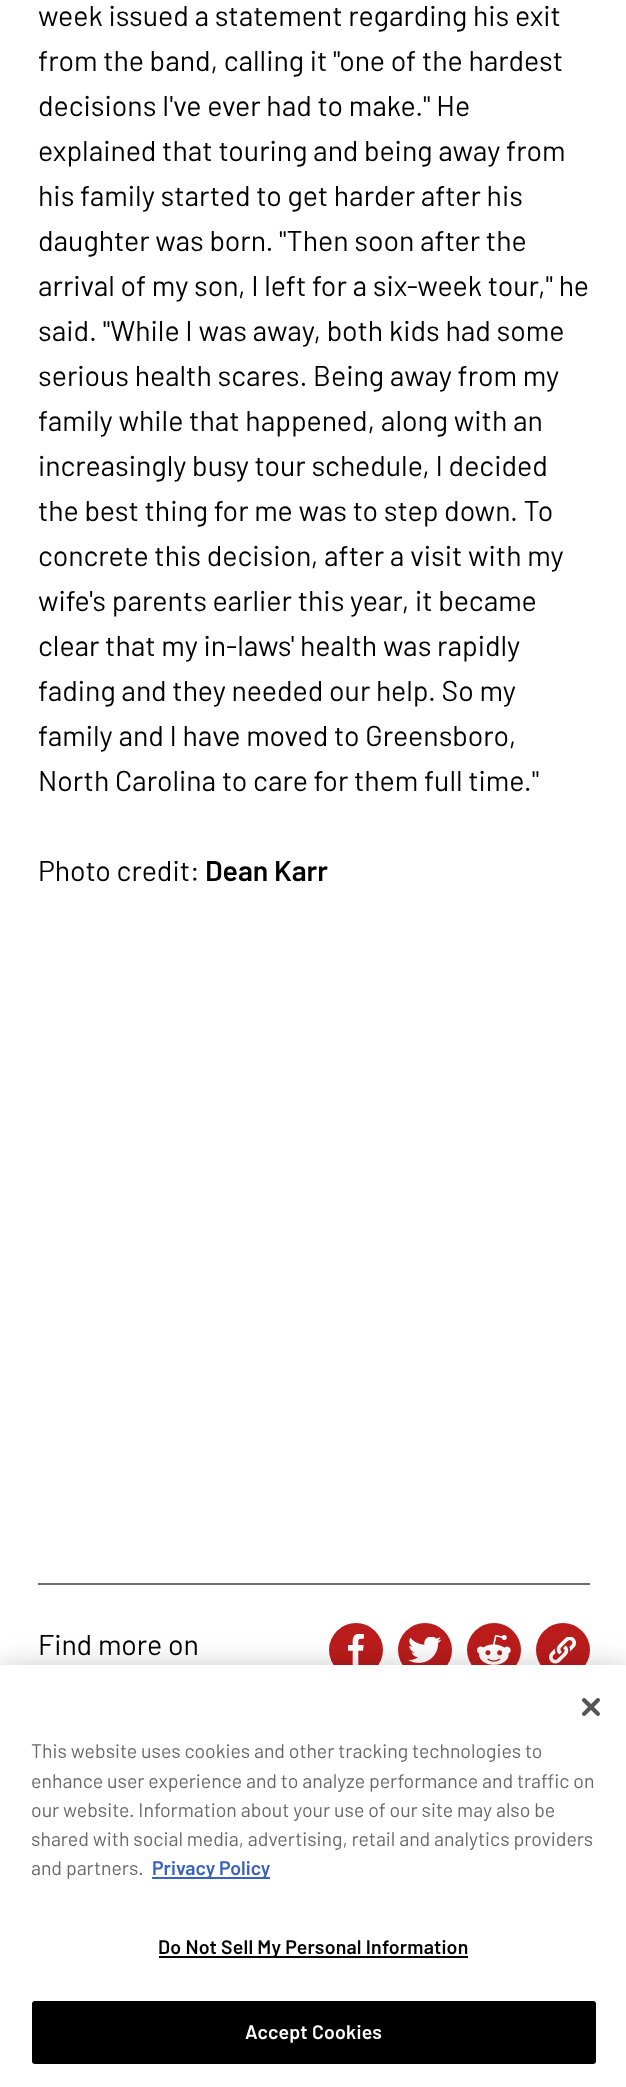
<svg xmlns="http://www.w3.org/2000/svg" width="626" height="2087">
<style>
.a{font:28.5px Barlow;fill:#000}
.b{font:600 28.5px Barlow;fill:#000}
.c{font:19.5px Barlow;fill:#696969}
.d{font:600 19.5px Barlow;fill:#3860be}
.e{font:600 19.5px Barlow;letter-spacing:0.2px;fill:#000}
.f{font:600 19.5px Barlow;letter-spacing:0.2px;fill:#fff}
</style>
<rect width="100%" height="100%" fill="#fff"/>
<path fill="#6e6e6e" d="M38 1583h552v2H38z"/>
<circle fill="#ba1c1c" cx="356" cy="1650" r="27"/>
<image href="1.png" x="348" y="1634" width="16" height="31"/>
<circle fill="#ba1c1c" cx="425" cy="1650" r="27"/>
<image href="2.png" x="408" y="1637" width="34" height="26"/>
<circle fill="#ba1c1c" cx="494" cy="1650" r="27"/>
<image href="3.png" x="477" y="1635" width="34" height="30"/>
<circle fill="#ba1c1c" cx="563" cy="1650" r="27"/>
<image href="4.png" x="549" y="1637" width="27" height="27"/>
<path fill="#00000033" filter="blur(13.5px)" d="M0 1665h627v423H0z"/>
<path fill="#fff" d="M0 1665h626v422H0z"/>
<image href="5.png" x="582" y="1698" width="18" height="18"/>
<path fill="#3860be" d="M152 1877h118v2H152z"/>
<path fill="#000" d="M159 1956h309v2H159z"/>
<rect fill="#000" stroke="#000" stroke-width="2" x="33" y="2002" width="562" height="61" rx="2"/>
<text class="a" x="38" y="26">week issued a statement regarding his exit</text>
<text class="a" x="38" y="71">from the band, calling it "one of the hardest</text>
<text class="a" x="38" y="116">decisions I've ever had to make." He</text>
<text class="a" x="38" y="161">explained that touring and being away from</text>
<text class="a" x="38" y="206">his family started to get harder after his</text>
<text class="a" x="38" y="251">daughter was born. "Then soon after the</text>
<text class="a" x="38" y="296">arrival of my son, I left for a six-week tour," he</text>
<text class="a" x="38" y="341">said. "While I was away, both kids had some</text>
<text class="a" x="38" y="386">serious health scares. Being away from my</text>
<text class="a" x="38" y="431">family while that happened, along with an</text>
<text class="a" x="38" y="476">increasingly busy tour schedule, I decided</text>
<text class="a" x="38" y="521">the best thing for me was to step down. To</text>
<text class="a" x="38" y="566">concrete this decision, after a visit with my</text>
<text class="a" x="38" y="611">wife's parents earlier this year, it became</text>
<text class="a" x="38" y="656">clear that my in-laws' health was rapidly</text>
<text class="a" x="38" y="701">fading and they needed our help. So my</text>
<text class="a" x="38" y="746">family and I have moved to Greensboro,</text>
<text class="a" x="38" y="791">North Carolina to care for them full time."</text>
<text class="a" x="38" y="881">Photo credit:</text>
<text class="b" x="205" y="881">Dean Karr</text>
<text class="a" x="38" y="1655">Find more on</text>
<text class="c" x="31" y="1758">This website uses cookies and other tracking technologies to</text>
<text class="c" x="31" y="1788">enhance user experience and to analyze performance and traffic on</text>
<text class="c" x="31" y="1817">our website. Information about your use of our site may also be</text>
<text class="c" x="31" y="1846">shared with social media, advertising, retail and analytics providers</text>
<text class="c" x="31" y="1875">and partners.</text>
<text class="d" x="152" y="1875">Privacy Policy</text>
<text class="e" x="158" y="1954">Do Not Sell My Personal Information</text>
<text class="f" x="245" y="2039">Accept Cookies</text>
</svg>
